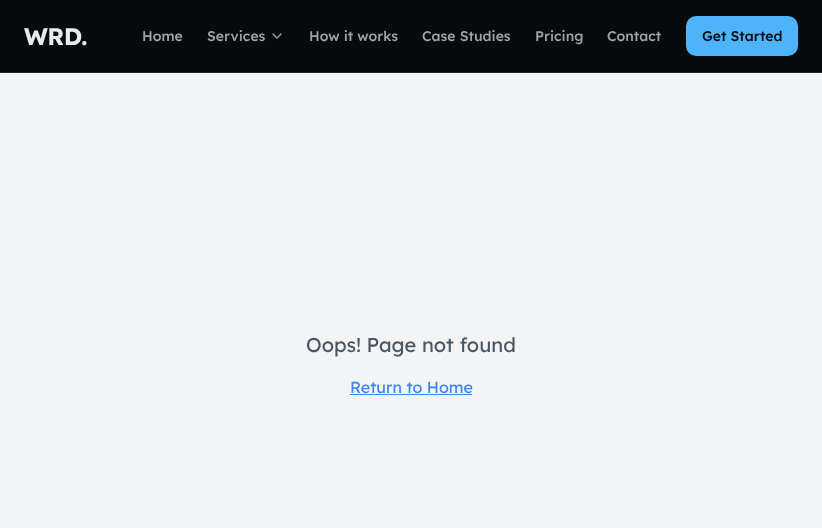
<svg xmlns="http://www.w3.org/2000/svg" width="822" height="528">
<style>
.a{font:bold 24px Lexend Deca;letter-spacing:-0.5px;fill:#e8eaed}
.b{font:500 14px Lexend Deca;fill:#9fa4ad}
.c{font:500 14px Lexend Deca;fill:#080a0c}
.d{font:20px Lexend Deca;fill:#4b5563}
.e{font:16px Lexend Deca;fill:#3b82f6}
</style>
<rect width="100%" height="100%" fill="#080a0c"/>
<path fill="#24272e" d="M0 72h822v1H0z"/>
<path fill="none" stroke="#9fa4ad" stroke-width="1.3" stroke-linecap="round" stroke-linejoin="round" d="M273 34l4 4l4-4"/>
<rect fill="#4db4f9" x="686" y="16" width="112" height="40" rx="10"/>
<path fill="#f3f4f6" d="M0 73h822v455H0z"/>
<path fill="#3b82f6" d="M350 394h122v1H350z"/>
<text class="a" x="24" y="45">WRD.</text>
<text class="b" x="142" y="41">Home</text>
<text class="b" x="207" y="41">Services</text>
<text class="b" x="309" y="41">How it works</text>
<text class="b" x="422" y="41">Case Studies</text>
<text class="b" x="535" y="41">Pricing</text>
<text class="b" x="607" y="41">Contact</text>
<text class="c" x="702" y="41">Get Started</text>
<text class="d" x="306" y="352">Oops! Page not found</text>
<text class="e" x="350" y="393">Return to Home</text>
</svg>
